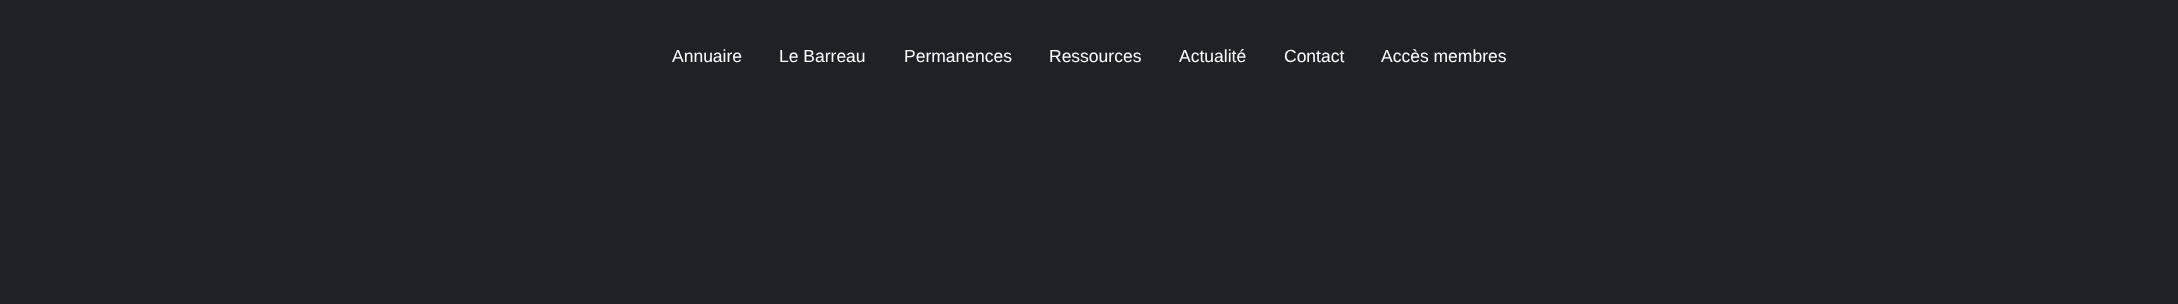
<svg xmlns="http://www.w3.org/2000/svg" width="2178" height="304">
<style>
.a{font:17.5px Liberation Sans;fill:#fff}
</style>
<rect width="100%" height="100%" fill="#202125"/>
<text class="a" x="672" y="62">Annuaire</text>
<text class="a" x="779" y="62">Le Barreau</text>
<text class="a" x="904" y="62">Permanences</text>
<text class="a" x="1049" y="62">Ressources</text>
<text class="a" x="1179" y="62">Actualité</text>
<text class="a" x="1284" y="62">Contact</text>
<text class="a" x="1381" y="62">Accès membres</text>
</svg>
